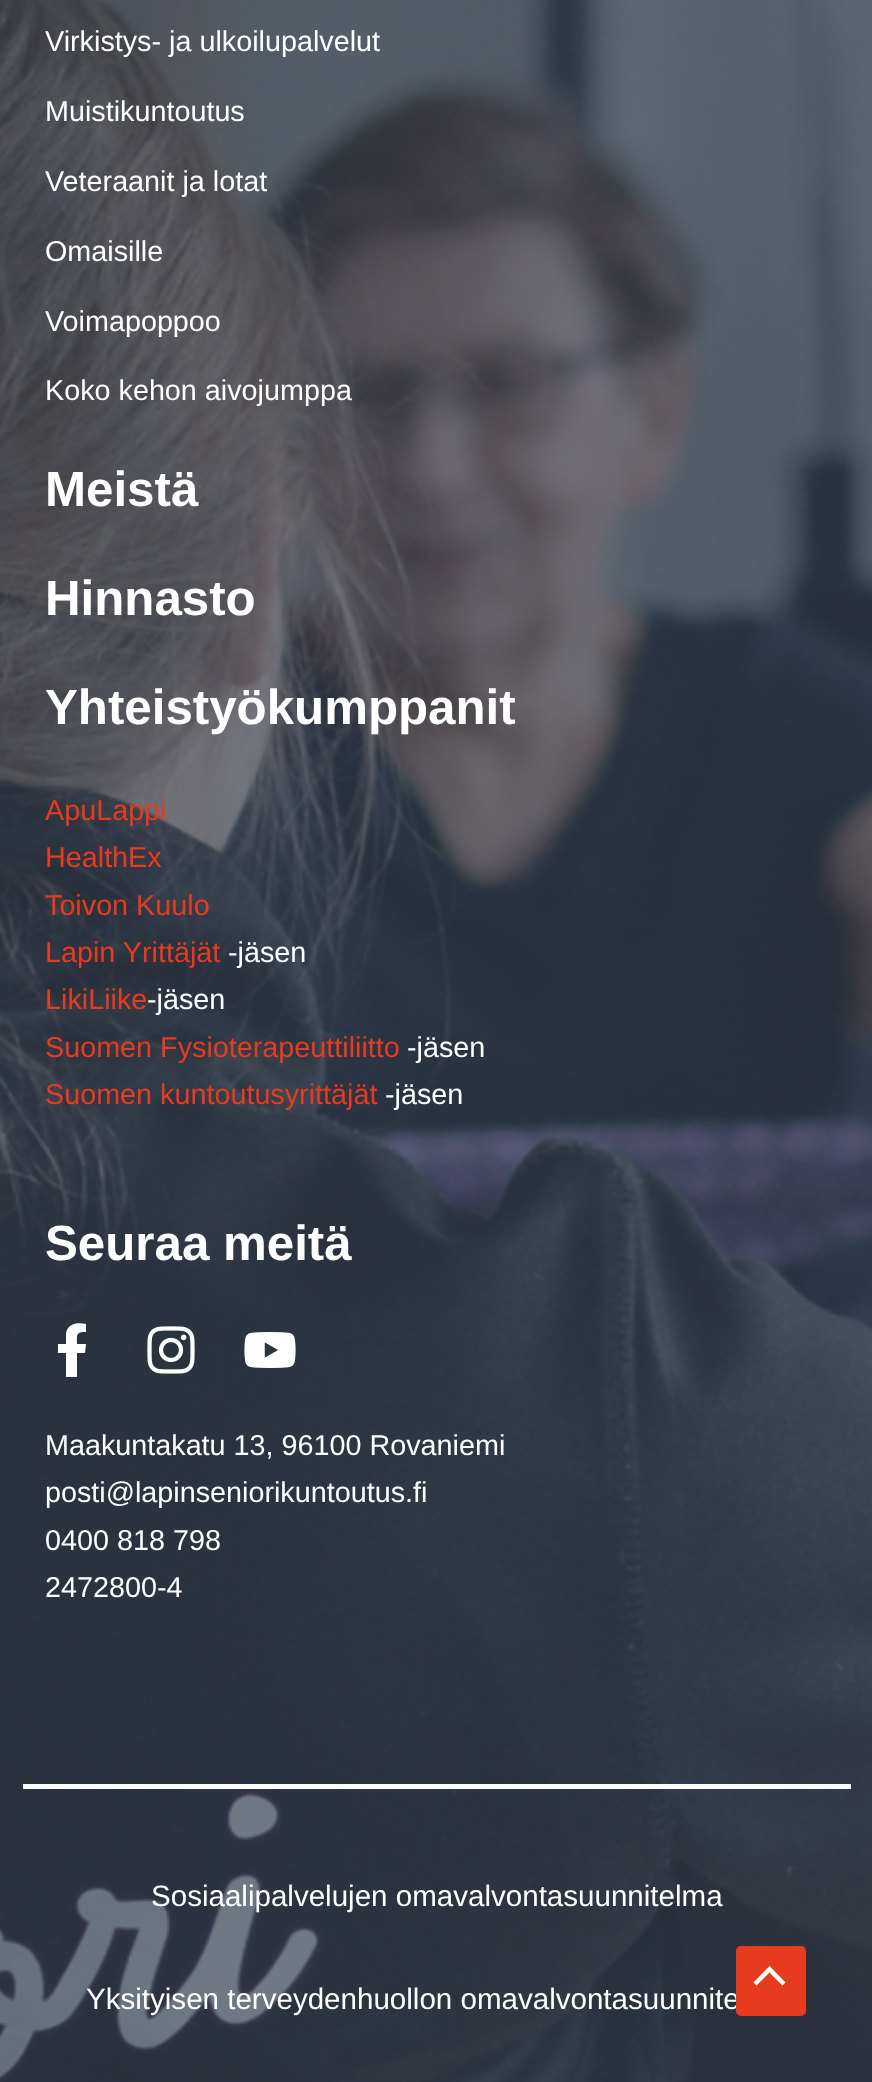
<svg xmlns="http://www.w3.org/2000/svg" width="872" height="2082">
<style>
.a{font:28.75px Liberation Sans;fill:#fff}
.b{font:bold 49.25px Liberation Sans;fill:#fff}
.c{font:28.75px Liberation Sans;fill:#e73b20}
.d{font:29.55px Liberation Sans;fill:#fff}
</style>
<rect width="100%" height="100%" fill="#fff"/>
<image href="1.png" x="0" y="0" width="872" height="2082"/>
<path fill="#fff" d="M23 1784h828v5H23z"/>
<path fill="#fff" d="M85 1353l1-9h-9c0-10-1-12 9-12v-8c-8-2-18-1-20 9v11h-8v9h8v24h11v-24z"/>
<image href="2.png" x="147" y="1326" width="48" height="48"/>
<image href="3.png" x="244" y="1332" width="52" height="36"/>
<text class="a" x="45" y="51">Virkistys- ja ulkoilupalvelut</text>
<text class="a" x="45" y="121">Muistikuntoutus</text>
<text class="a" x="45" y="191">Veteraanit ja lotat</text>
<text class="a" x="45" y="261">Omaisille</text>
<text class="a" x="45" y="331">Voimapoppoo</text>
<text class="a" x="45" y="400">Koko kehon aivojumppa</text>
<text class="b" x="45" y="506">Meistä</text>
<text class="b" x="45" y="615">Hinnasto</text>
<text class="b" x="45" y="724">Yhteistyökumppanit</text>
<text class="c" x="45" y="820">ApuLappi</text>
<text class="c" x="45" y="867">HealthEx</text>
<text class="c" x="45" y="915">Toivon Kuulo</text>
<text class="c" x="45" y="962">Lapin Yrittäjät</text>
<text class="a" x="228" y="962">-jäsen</text>
<text class="c" x="45" y="1009">LikiLiike</text>
<text class="a" x="147" y="1009">-jäsen</text>
<text class="c" x="45" y="1057">Suomen Fysioterapeuttiliitto</text>
<text class="a" x="407" y="1057">-jäsen</text>
<text class="c" x="45" y="1104">Suomen kuntoutusyrittäjät</text>
<text class="a" x="385" y="1104">-jäsen</text>
<text class="b" x="45" y="1260">Seuraa meitä</text>
<text class="a" x="45" y="1455">Maakuntakatu 13, 96100 Rovaniemi</text>
<text class="a" x="45" y="1502">posti@lapinseniorikuntoutus.fi</text>
<text class="a" x="45" y="1550">0400 818 798</text>
<text class="a" x="45" y="1597">2472800-4</text>
<text class="d" x="151" y="1906">Sosiaalipalvelujen omavalvontasuunnitelma</text>
<text class="d" x="86" y="2009">Yksityisen terveydenhuollon omavalvontasuunnite</text>
<rect fill="#e73b20" x="736" y="1946" width="70" height="70" rx="5"/>
<path fill="#fff" d="M785.5 1982.5l-16-16.5l-16 16.5l3 3l13-13l13 13z"/>
</svg>
